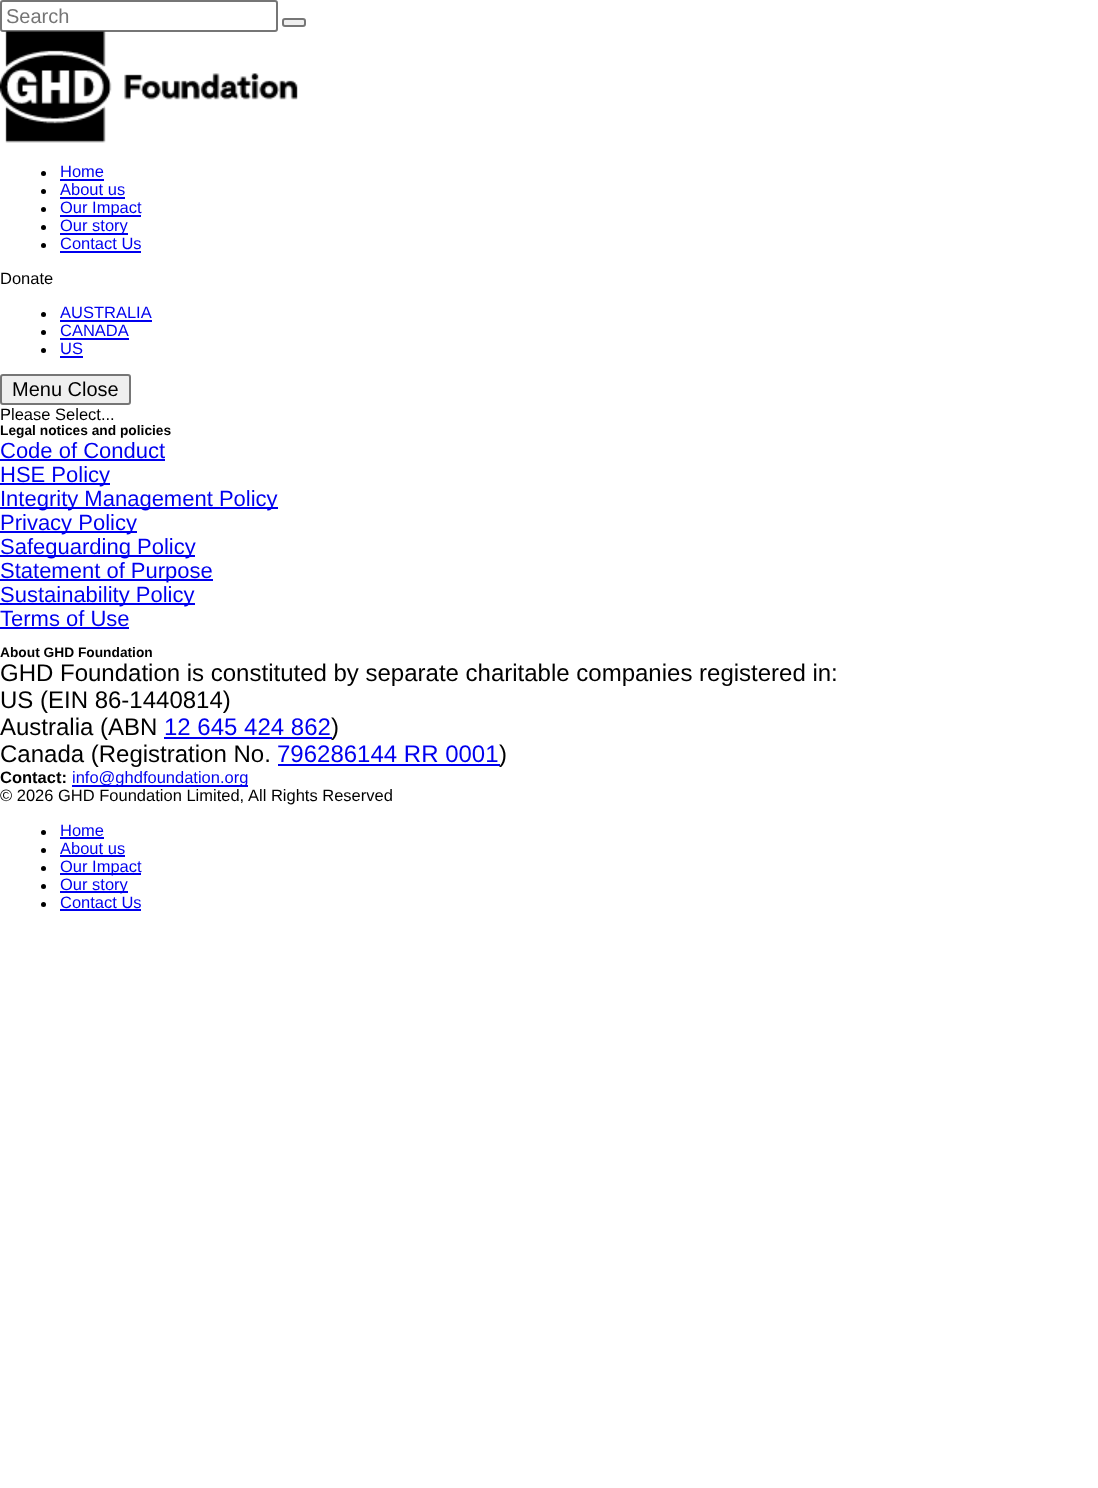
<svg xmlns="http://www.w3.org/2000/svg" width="1098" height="1488">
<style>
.a{font:20px Liberation Sans;fill:#757575}
.b{font:16.5px Liberation Sans;fill:#00e}
.c{font:16.5px Liberation Sans;fill:#000}
.d{font:20px Liberation Sans;fill:#000}
.e{font:bold 13.75px Liberation Sans;fill:#000}
.f{font:22px Liberation Sans;fill:#00e}
.g{font:24px Liberation Sans;fill:#000}
.h{font:24px Liberation Sans;fill:#00e}
.i{font:bold 16.5px Liberation Sans;fill:#000}
</style>
<rect width="100%" height="100%" fill="#fff"/>
<rect fill="none" stroke="#767676" stroke-width="2" x="1" y="1" width="276" height="30" rx="2"/>
<rect fill="#efefef" stroke="#767676" stroke-width="2" x="283" y="19" width="22" height="7" rx="2"/>
<image href="1.png" x="0" y="31" width="298" height="112"/>
<circle fill="#000" cx="43.5" cy="173.5" r="2.5"/>
<path fill="#00e" d="M60 179h44v2H60z"/>
<circle fill="#000" cx="43.5" cy="191.5" r="2.5"/>
<path fill="#00e" d="M60 197h65v2H60z"/>
<circle fill="#000" cx="43.5" cy="209.5" r="2.5"/>
<path fill="#00e" d="M60 215h81v2H60z"/>
<circle fill="#000" cx="43.5" cy="227.5" r="2.5"/>
<path fill="#00e" d="M60 233h68v2H60z"/>
<circle fill="#000" cx="43.5" cy="245.5" r="2.5"/>
<path fill="#00e" d="M60 251h81v2H60z"/>
<circle fill="#000" cx="43.5" cy="314.5" r="2.5"/>
<path fill="#00e" d="M60 320h92v2H60z"/>
<circle fill="#000" cx="43.5" cy="332.5" r="2.5"/>
<path fill="#00e" d="M60 338h69v2H60z"/>
<circle fill="#000" cx="43.5" cy="350.5" r="2.5"/>
<path fill="#00e" d="M60 356h23v2H60z"/>
<rect fill="#efefef" stroke="#767676" stroke-width="2" x="1" y="375" width="129" height="29" rx="2"/>
<path fill="#00e" d="M0 459h165v2H0z"/>
<path fill="#00e" d="M0 483h110v2H0z"/>
<path fill="#00e" d="M0 507h278v2H0z"/>
<path fill="#00e" d="M0 531h137v2H0z"/>
<path fill="#00e" d="M0 555h195v2H0z"/>
<path fill="#00e" d="M0 579h213v2H0z"/>
<path fill="#00e" d="M0 603h195v2H0z"/>
<path fill="#00e" d="M0 627h129v2H0z"/>
<path fill="#00e" d="M164 737h168v2H164z"/>
<path fill="#00e" d="M278 764h222v2H278z"/>
<path fill="#00e" d="M72 785h176v2H72z"/>
<circle fill="#000" cx="43.5" cy="832.5" r="2.5"/>
<path fill="#00e" d="M60 837h44v2H60z"/>
<circle fill="#000" cx="43.5" cy="850.5" r="2.5"/>
<path fill="#00e" d="M60 855h65v2H60z"/>
<circle fill="#000" cx="43.5" cy="868.5" r="2.5"/>
<path fill="#00e" d="M60 873h81v2H60z"/>
<circle fill="#000" cx="43.5" cy="886.5" r="2.5"/>
<path fill="#00e" d="M60 891h68v2H60z"/>
<circle fill="#000" cx="43.5" cy="904.5" r="2.5"/>
<path fill="#00e" d="M60 909h81v2H60z"/>
<text class="a" x="6" y="23">Search</text>
<text class="b" x="60" y="177">Home</text>
<text class="b" x="60" y="195">About us</text>
<text class="b" x="60" y="213">Our Impact</text>
<text class="b" x="60" y="231">Our story</text>
<text class="b" x="60" y="249">Contact Us</text>
<text class="c" x="0" y="284">Donate</text>
<text class="b" x="60" y="318">AUSTRALIA</text>
<text class="b" x="60" y="336">CANADA</text>
<text class="b" x="60" y="354">US</text>
<text class="d" x="12" y="396">Menu Close</text>
<text class="c" x="0" y="420">Please Select...</text>
<text class="e" x="0" y="435">Legal notices and policies</text>
<text class="f" x="0" y="458">Code of Conduct</text>
<text class="f" x="0" y="482">HSE Policy</text>
<text class="f" x="0" y="506">Integrity Management Policy</text>
<text class="f" x="0" y="530">Privacy Policy</text>
<text class="f" x="0" y="554">Safeguarding Policy</text>
<text class="f" x="0" y="578">Statement of Purpose</text>
<text class="f" x="0" y="602">Sustainability Policy</text>
<text class="f" x="0" y="626">Terms of Use</text>
<text class="e" x="0" y="657">About GHD Foundation</text>
<text class="g" x="0" y="681">GHD Foundation is constituted by separate charitable companies registered in:</text>
<text class="g" x="0" y="708">US (EIN 86-1440814)</text>
<text class="g" x="0" y="735">Australia (ABN</text>
<text class="h" x="164" y="735">12 645 424 862</text>
<text class="g" x="331" y="735">)</text>
<text class="g" x="0" y="762">Canada (Registration No.</text>
<text class="h" x="277" y="762">796286144 RR 0001</text>
<text class="g" x="499" y="762">)</text>
<text class="i" x="0" y="783">Contact:</text>
<text class="b" x="72" y="783">info@ghdfoundation.org</text>
<text class="c" x="0" y="801">© 2026</text>
<text class="c" x="58" y="801">GHD Foundation Limited,</text>
<text class="c" x="248" y="801">All Rights Reserved</text>
<text class="b" x="60" y="836">Home</text>
<text class="b" x="60" y="854">About us</text>
<text class="b" x="60" y="872">Our Impact</text>
<text class="b" x="60" y="890">Our story</text>
<text class="b" x="60" y="908">Contact Us</text>
</svg>
